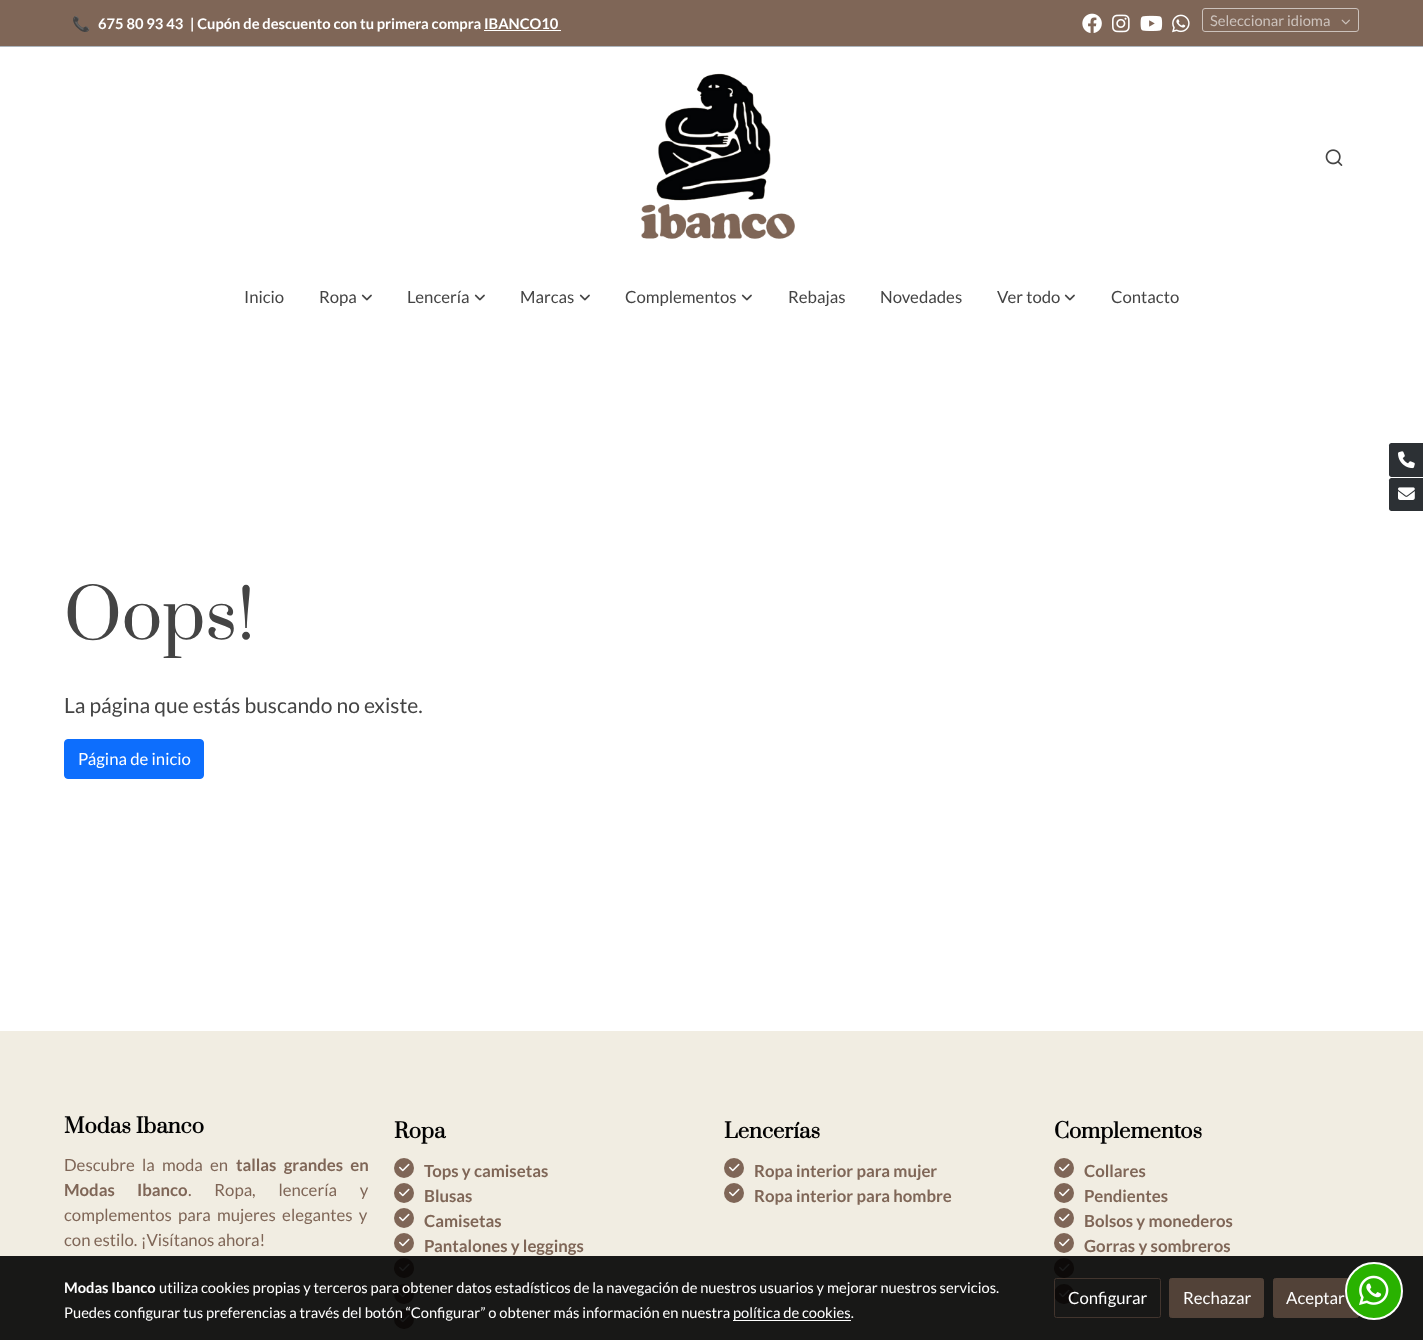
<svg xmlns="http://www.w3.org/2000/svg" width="1423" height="1340">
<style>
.a{font:bold 14.7px Noto Color Emoji;fill:#fff}
.b{font:bold 14.7px Lato;fill:#fff}
.c{font:14.7px Lato;fill:#ccc2bc}
.d{font:16.75px Lato;fill:#444}
.e{font:67px Prata;fill:#444}
.f{font:21px Lato;fill:#444}
.g{font:16.75px Lato;fill:#fff}
.h{font:bold 20.25px Prata;fill:#020202}
.i{font:16.75px Lato;fill:#7f6657}
.j{font:bold 16.75px Lato;fill:#7f6657}
.k{font:14.7px Lato;fill:#fff}
</style>
<rect width="100%" height="100%" fill="#fff"/>
<path fill="#adb5bd" d="M0 46h1423v1H0z"/>
<path fill="#7f6657" d="M0 0h1423v46H0z"/>
<path fill="#fff" d="M484 30h77v1H484z"/>
<image href="1.png" x="1082" y="13" width="20" height="20"/>
<image href="2.png" x="1112" y="14" width="18" height="19"/>
<image href="3.png" x="1140" y="15" width="23" height="16"/>
<image href="4.png" x="1172" y="14" width="18" height="19"/>
<rect fill="none" stroke="#ccc2bc" x="1202.5" y="8.5" width="156" height="23" rx="2.5"/>
<image href="5.png" x="1341" y="19" width="9" height="6"/>
<image href="6.png" x="641" y="73" width="154" height="166"/>
<image href="7.png" x="1325" y="149" width="18" height="17"/>
<image href="8.png" x="361" y="294" width="11" height="7"/>
<image href="8.png" x="474" y="294" width="11" height="7"/>
<image href="8.png" x="579" y="294" width="11" height="7"/>
<image href="8.png" x="741" y="294" width="11" height="7"/>
<image href="8.png" x="1064" y="294" width="11" height="7"/>
<rect fill="#0d6efd" stroke="#0d6efd" x="64.5" y="739.5" width="139" height="39" rx="3.5"/>
<path fill="#f1ede2" d="M0 1031h1423v225H0z"/>
<path fill="#181817" d="M0 1256h1423v84H0z"/>
<circle fill="#7f6657" cx="404" cy="1168" r="10"/>
<image href="9.png" x="399" y="1163" width="11" height="9"/>
<circle fill="#7f6657" cx="404" cy="1193" r="10"/>
<image href="9.png" x="399" y="1188" width="11" height="9"/>
<circle fill="#7f6657" cx="404" cy="1218" r="10"/>
<image href="9.png" x="399" y="1213" width="11" height="9"/>
<circle fill="#7f6657" cx="404" cy="1243" r="10"/>
<image href="9.png" x="399" y="1238" width="11" height="9"/>
<circle fill="#0d0a09" cx="404" cy="1268" r="10"/>
<image href="10.png" x="399" y="1263" width="11" height="9"/>
<circle fill="#0d0a09" cx="404" cy="1294" r="10"/>
<image href="10.png" x="399" y="1289" width="11" height="9"/>
<circle fill="#0d0a09" cx="404" cy="1319" r="10"/>
<image href="10.png" x="399" y="1314" width="11" height="9"/>
<circle fill="#7f6657" cx="734" cy="1168" r="10"/>
<image href="9.png" x="729" y="1163" width="11" height="9"/>
<circle fill="#7f6657" cx="734" cy="1193" r="10"/>
<image href="9.png" x="729" y="1188" width="11" height="9"/>
<circle fill="#7f6657" cx="1064" cy="1168" r="10"/>
<image href="9.png" x="1059" y="1163" width="11" height="9"/>
<circle fill="#7f6657" cx="1064" cy="1193" r="10"/>
<image href="9.png" x="1059" y="1188" width="11" height="9"/>
<circle fill="#7f6657" cx="1064" cy="1218" r="10"/>
<image href="9.png" x="1059" y="1213" width="11" height="9"/>
<circle fill="#7f6657" cx="1064" cy="1243" r="10"/>
<image href="9.png" x="1059" y="1238" width="11" height="9"/>
<circle fill="#0d0a09" cx="1064" cy="1268" r="10"/>
<image href="10.png" x="1059" y="1263" width="11" height="9"/>
<circle fill="#0d0a09" cx="1064" cy="1294" r="10"/>
<image href="10.png" x="1059" y="1289" width="11" height="9"/>
<path fill="#2c3034" d="M1391.5 443h31.5v34h-31.5c-1.5 0-2.5-1-2.5-2.5v-29c0-1.5 1-2.5 2.5-2.5z"/>
<image href="11.png" x="1398" y="451" width="17" height="18"/>
<path fill="#2c3034" d="M1391.5 478h31.5v33h-31.5c-1.5 0-2.5-1-2.5-2.5v-28c0-1.5 1-2.5 2.5-2.5z"/>
<image href="12.png" x="1398" y="487" width="17" height="13"/>
<path fill="#fff" d="M733 1320h118v1H733z"/>
<rect fill="none" stroke="#42352e" x="1054.5" y="1278.5" width="106" height="39" rx="2"/>
<rect fill="#524238" stroke="#524238" x="1169.5" y="1278.5" width="94" height="39" rx="2"/>
<rect fill="#524238" stroke="#524238" x="1273.5" y="1278.5" width="85" height="39" rx="2"/>
<circle fill="#29b200" stroke="#fff" stroke-width="2" cx="1374" cy="1291" r="28"/>
<image href="13.png" x="1359" y="1275" width="30" height="30"/>
<text class="a" x="72" y="29">📞</text>
<text class="b" x="98" y="29">675 80 93 43</text>
<text class="b" x="190" y="29">| Cupón de descuento con tu primera compra IBANCO10</text>
<text class="c" x="1210" y="26">Seleccionar idioma</text>
<text class="d" x="244" y="303">Inicio</text>
<text class="d" x="319" y="303">Ropa</text>
<text class="d" x="407" y="303">Lencería</text>
<text class="d" x="520" y="303">Marcas</text>
<text class="d" x="625" y="303">Complementos</text>
<text class="d" x="788" y="303">Rebajas</text>
<text class="d" x="880" y="303">Novedades</text>
<text class="d" x="997" y="303">Ver todo</text>
<text class="d" x="1111" y="303">Contacto</text>
<text class="e" x="64" y="639">Oops!</text>
<text class="f" x="64" y="713">La página que estás buscando no existe.</text>
<text class="g" x="78" y="765">Página de inicio</text>
<text class="h" x="64" y="1133">Modas Ibanco</text>
<text class="i" x="64" y="1171" word-spacing="4">Descubre la moda en</text>
<text class="j" x="236" y="1171" word-spacing="4">tallas grandes en</text>
<text class="j" x="64" y="1196" word-spacing="19">Modas Ibanco</text>
<text class="i" x="188" y="1196" word-spacing="19.5">. Ropa, lencería y</text>
<text class="i" x="64" y="1221" word-spacing="3">complementos para mujeres elegantes y</text>
<text class="i" x="64" y="1246">con estilo. ¡Visítanos ahora!</text>
<text class="h" x="394" y="1138">Ropa</text>
<text class="j" x="424" y="1177">Tops y camisetas</text>
<text class="j" x="424" y="1202">Blusas</text>
<text class="j" x="424" y="1227">Camisetas</text>
<text class="j" x="424" y="1252">Pantalones y leggings</text>
<text class="h" x="724" y="1138">Lencerías</text>
<text class="j" x="754" y="1177">Ropa interior para mujer</text>
<text class="j" x="754" y="1202">Ropa interior para hombre</text>
<text class="h" x="1054" y="1138">Complementos</text>
<text class="j" x="1084" y="1177">Collares</text>
<text class="j" x="1084" y="1202">Pendientes</text>
<text class="j" x="1084" y="1227">Bolsos y monederos</text>
<text class="j" x="1084" y="1252">Gorras y sombreros</text>
<text class="b" x="64" y="1293">Modas Ibanco</text>
<text class="k" x="159" y="1293">utiliza cookies propias y terceros para obtener datos estadísticos de la navegación de nuestros usuarios y mejorar nuestros servicios.</text>
<text class="k" x="64" y="1318">Puedes configurar tus preferencias a través del botón “Configurar” o obtener más información en nuestra</text>
<text class="k" x="733" y="1318">política de cookies.</text>
<text class="g" x="1068" y="1304">Configurar</text>
<text class="g" x="1183" y="1304">Rechazar</text>
<text class="g" x="1286" y="1304">Aceptar</text>
</svg>
